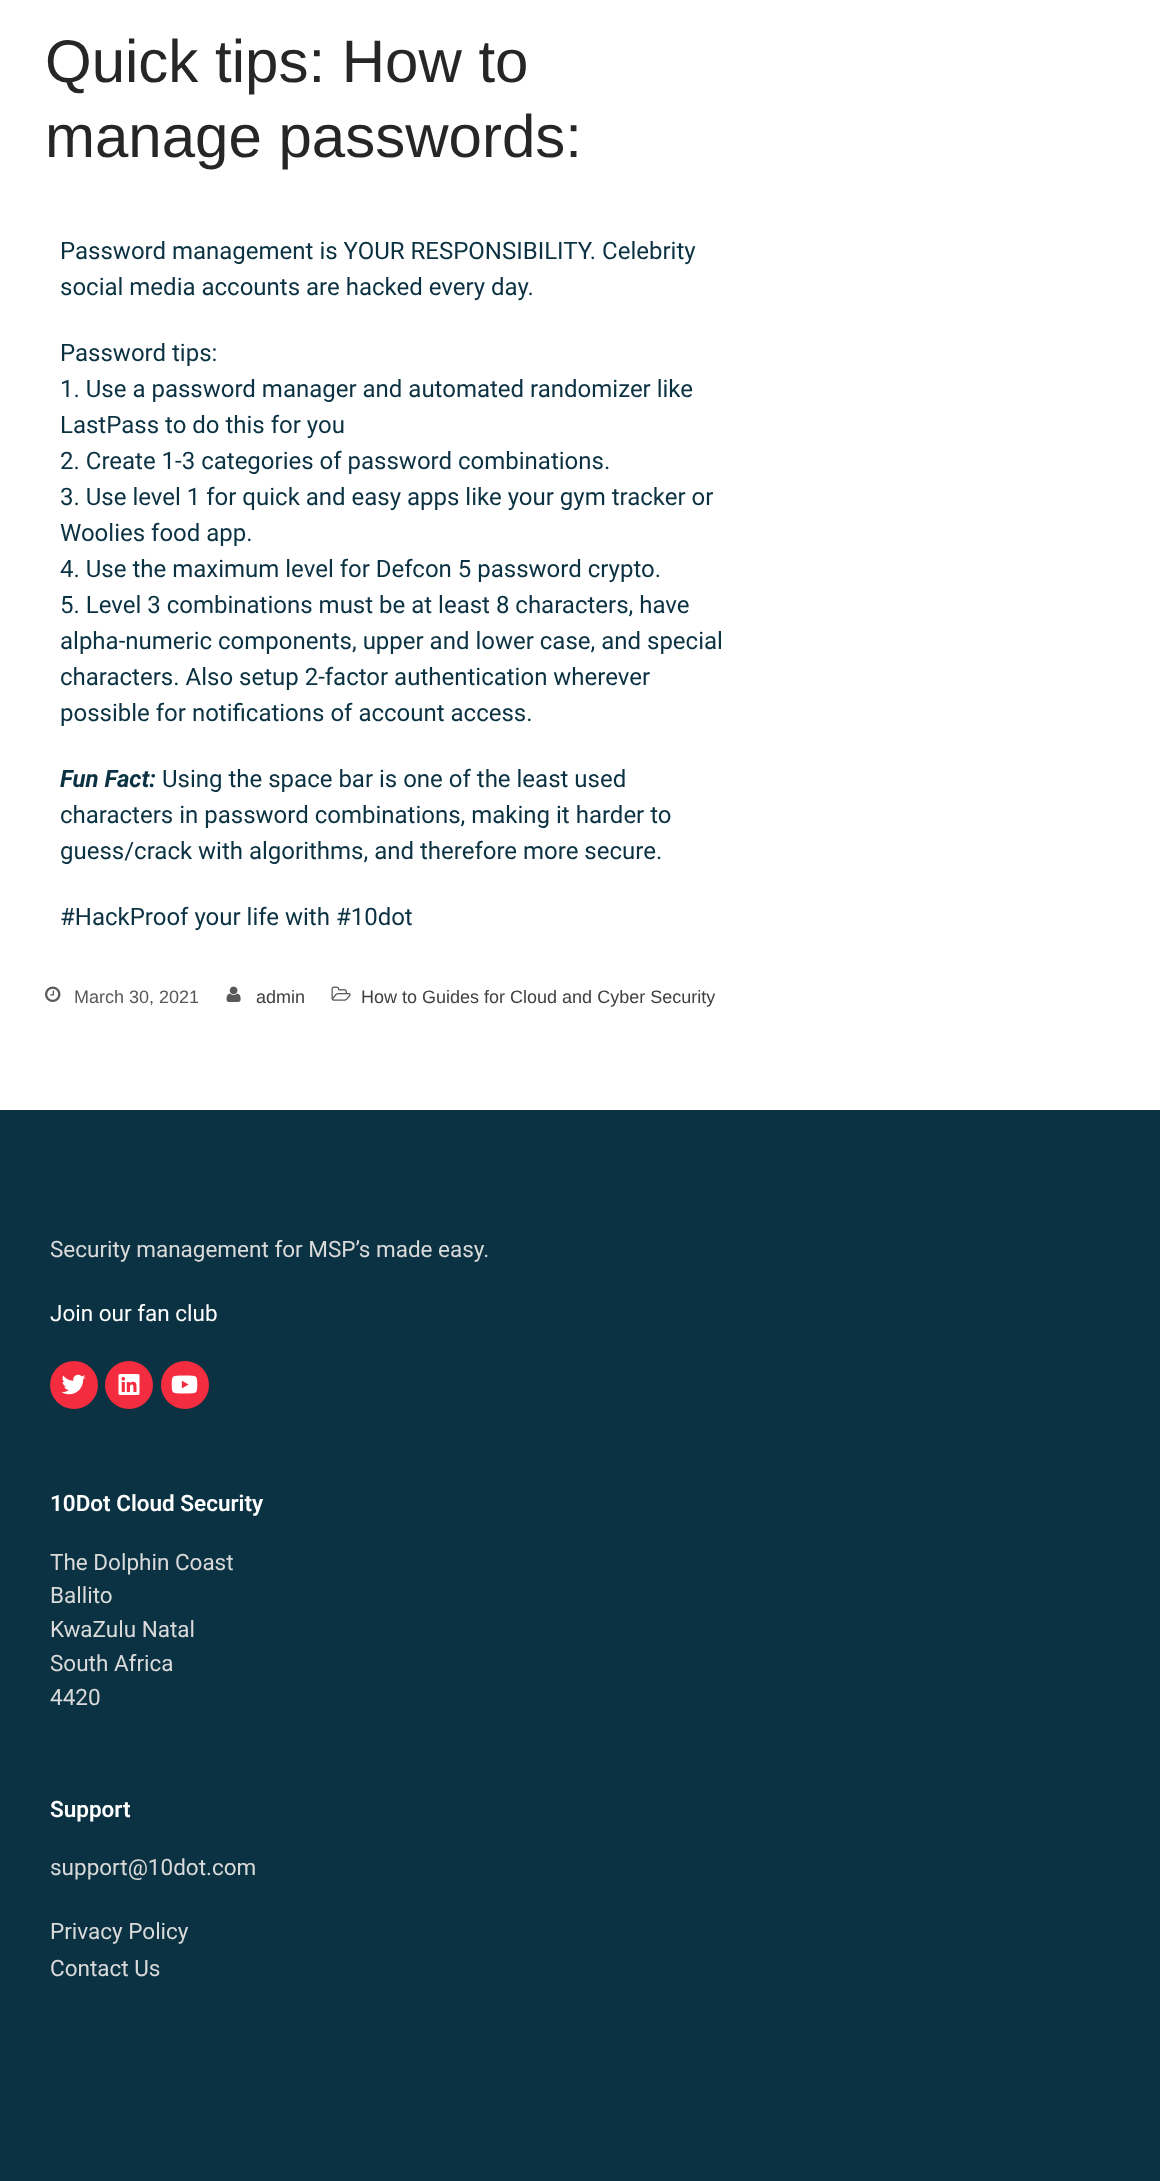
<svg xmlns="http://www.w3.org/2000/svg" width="1160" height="2181">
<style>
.a{font:60px Liberation Sans;fill:#262626}
.b{font:24px Roboto;fill:#0b3242}
.c{font:italic bold 24px Roboto;fill:#0b3242}
.d{font:18px Liberation Sans;fill:#595959}
.e{font:18px Liberation Sans;fill:#404040}
.f{font:22.5px Roboto;fill:#dadada}
.g{font:22.5px Roboto;fill:#fff}
.h{font:600 22.5px Roboto;fill:#fff}
</style>
<rect width="100%" height="100%" fill="#fff"/>
<image href="1.png" x="45" y="986" width="16" height="16"/>
<image href="2.png" x="226" y="986" width="15" height="16"/>
<image href="3.png" x="331" y="986" width="20" height="15"/>
<path fill="#0b3242" d="M0 1110h1160v1071H0z"/>
<circle fill="#f42c3f" cx="74" cy="1385" r="24"/>
<image href="4.png" x="61" y="1374" width="25" height="21"/>
<circle fill="#f42c3f" cx="129" cy="1385" r="24"/>
<image href="5.png" x="118" y="1374" width="22" height="21"/>
<circle fill="#f42c3f" cx="185" cy="1385" r="24"/>
<image href="6.png" x="171" y="1375" width="27" height="19"/>
<text class="a" x="45" y="82">Quick tips: How to</text>
<text class="a" x="45" y="157">manage passwords:</text>
<text class="b" x="60" y="259">Password management is YOUR RESPONSIBILITY. Celebrity</text>
<text class="b" x="60" y="295">social media accounts are hacked every day.</text>
<text class="b" x="60" y="361">Password tips:</text>
<text class="b" x="60" y="397">1. Use a password manager and automated randomizer like</text>
<text class="b" x="60" y="433">LastPass to do this for you</text>
<text class="b" x="60" y="469">2. Create 1-3 categories of password combinations.</text>
<text class="b" x="60" y="505">3. Use level 1 for quick and easy apps like your gym tracker or</text>
<text class="b" x="60" y="541">Woolies food app.</text>
<text class="b" x="60" y="577">4. Use the maximum level for Defcon 5 password crypto.</text>
<text class="b" x="60" y="613">5. Level 3 combinations must be at least 8 characters, have</text>
<text class="b" x="60" y="649">alpha-numeric components, upper and lower case, and special</text>
<text class="b" x="60" y="685">characters. Also setup 2-factor authentication wherever</text>
<text class="b" x="60" y="721">possible for notifications of account access.</text>
<text class="c" x="60" y="787">Fun Fact:</text>
<text class="b" x="162" y="787">Using the space bar is one of the least used</text>
<text class="b" x="60" y="823">characters in password combinations, making it harder to</text>
<text class="b" x="60" y="859">guess/crack with algorithms, and therefore more secure.</text>
<text class="b" x="60" y="925">#HackProof your life with #10dot</text>
<text class="d" x="74" y="1003">March 30, 2021</text>
<text class="e" x="256" y="1003">admin</text>
<text class="e" x="361" y="1003">How to Guides for Cloud and Cyber Security</text>
<text class="f" x="50" y="1257">Security management for MSP’s made easy.</text>
<text class="g" x="50" y="1321">Join our fan club</text>
<text class="h" x="50" y="1511">10Dot Cloud Security</text>
<text class="f" x="50" y="1570">The Dolphin Coast</text>
<text class="f" x="50" y="1603">Ballito</text>
<text class="f" x="50" y="1637">KwaZulu Natal</text>
<text class="f" x="50" y="1671">South Africa</text>
<text class="f" x="50" y="1705">4420</text>
<text class="h" x="50" y="1817">Support</text>
<text class="f" x="50" y="1875">support@10dot.com</text>
<text class="f" x="50" y="1939">Privacy Policy</text>
<text class="f" x="50" y="1976">Contact Us</text>
</svg>
